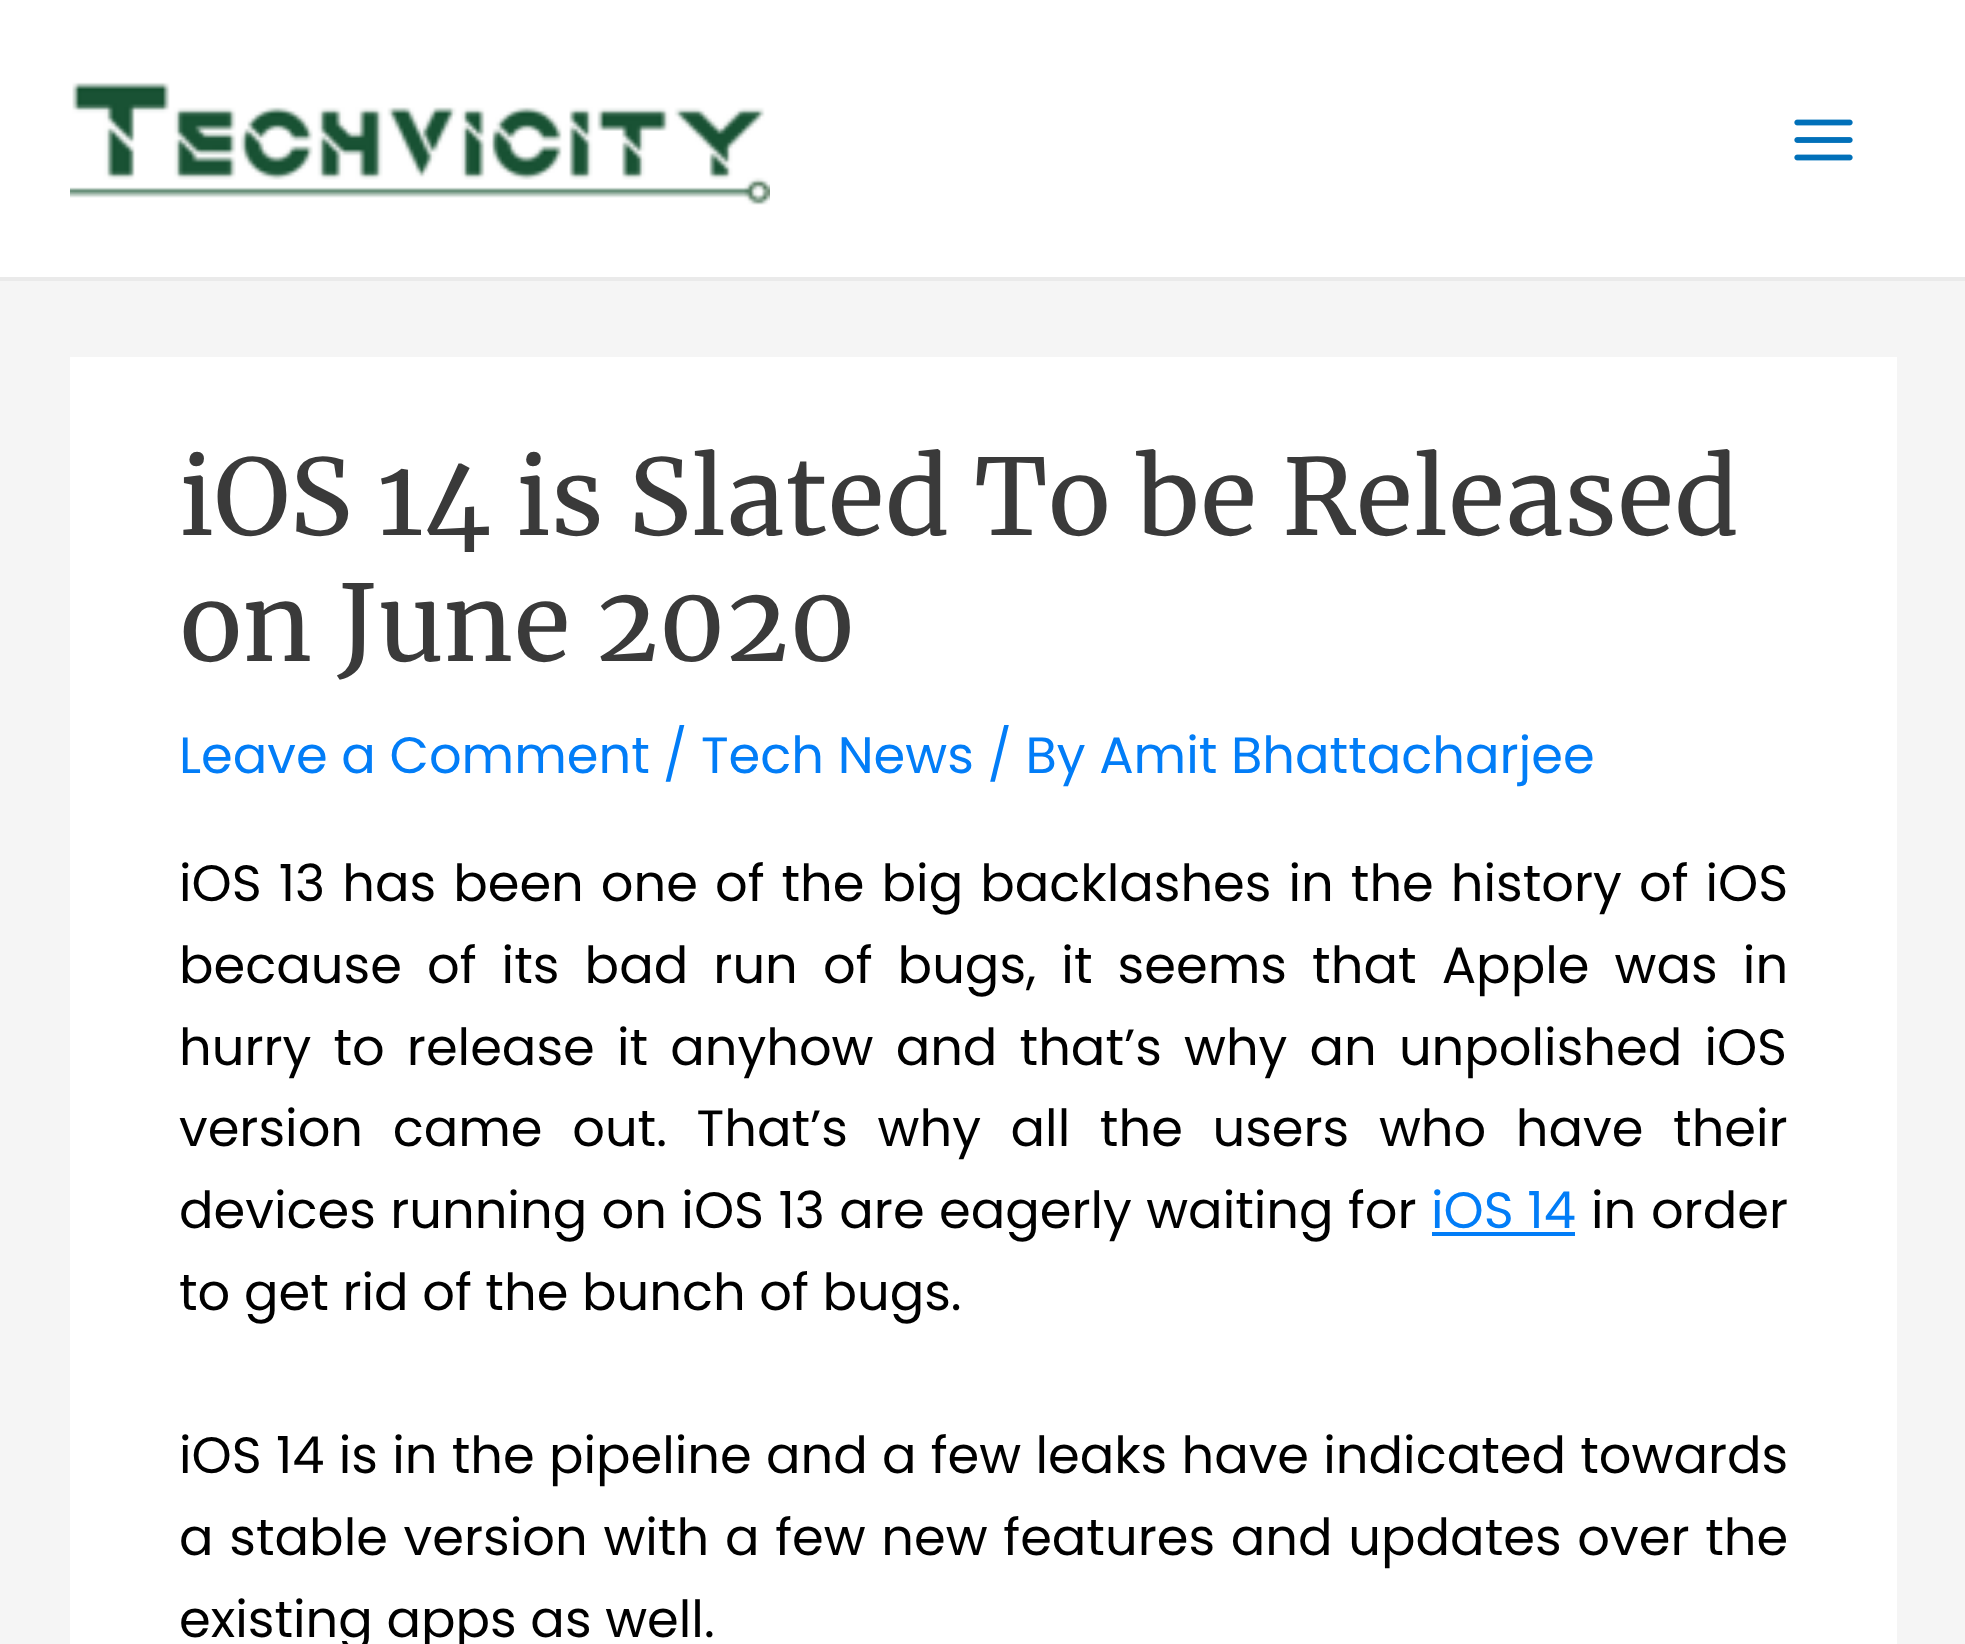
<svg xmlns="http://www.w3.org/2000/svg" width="1965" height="1644">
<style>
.a{font:105px Merriweather;fill:#3a3a3a}
.b{font:51.1px Poppins;fill:#027df7}
.c{font:51.1px Poppins;fill:#000}
</style>
<rect width="100%" height="100%" fill="#f5f5f5"/>
<path fill="#fff" d="M0 0h1965v277H0z"/>
<path fill="#eaeaea" d="M0 277h1965v4H0z"/>
<image href="1.png" x="70" y="82" width="700" height="123"/>
<image href="2.png" x="1794" y="119" width="59" height="42"/>
<path fill="#fff" d="M70 357h1827v1287H70z"/>
<path fill="#027df7" d="M1432 1232h143v4H1432z"/>
<text class="a" x="179" y="535">iOS 14 is Slated To be Released</text>
<text class="a" x="179" y="661">on June 2020</text>
<text class="b" x="179" y="773">Leave a Comment</text>
<text class="b" x="663" y="773">/ Tech News / By Amit Bhattacharjee</text>
<text class="c" x="179" y="901" word-spacing="3.4">iOS 13 has been one of the big backlashes in the history of iOS</text>
<text class="c" x="179" y="983" word-spacing="11.5">because of its bad run of bugs, it seems that Apple was in</text>
<text class="c" x="179" y="1065" word-spacing="8.5">hurry to release it anyhow and that’s why an unpolished iOS</text>
<text class="c" x="179" y="1146" word-spacing="16">version came out. That’s why all the users who have their</text>
<text class="c" x="179" y="1228" word-spacing="0.75">devices running on iOS 13 are eagerly waiting for</text>
<text class="b" x="1431" y="1228">iOS 14</text>
<text class="c" x="1591" y="1228" word-spacing="1">in order</text>
<text class="c" x="179" y="1310">to get rid of the bunch of bugs.</text>
<text class="c" x="179" y="1473" word-spacing="0.6">iOS 14 is in the pipeline and a few leaks have indicated towards</text>
<text class="c" x="179" y="1555" word-spacing="2.1">a stable version with a few new features and updates over the</text>
<text class="c" x="179" y="1637">existing apps as well.</text>
</svg>
